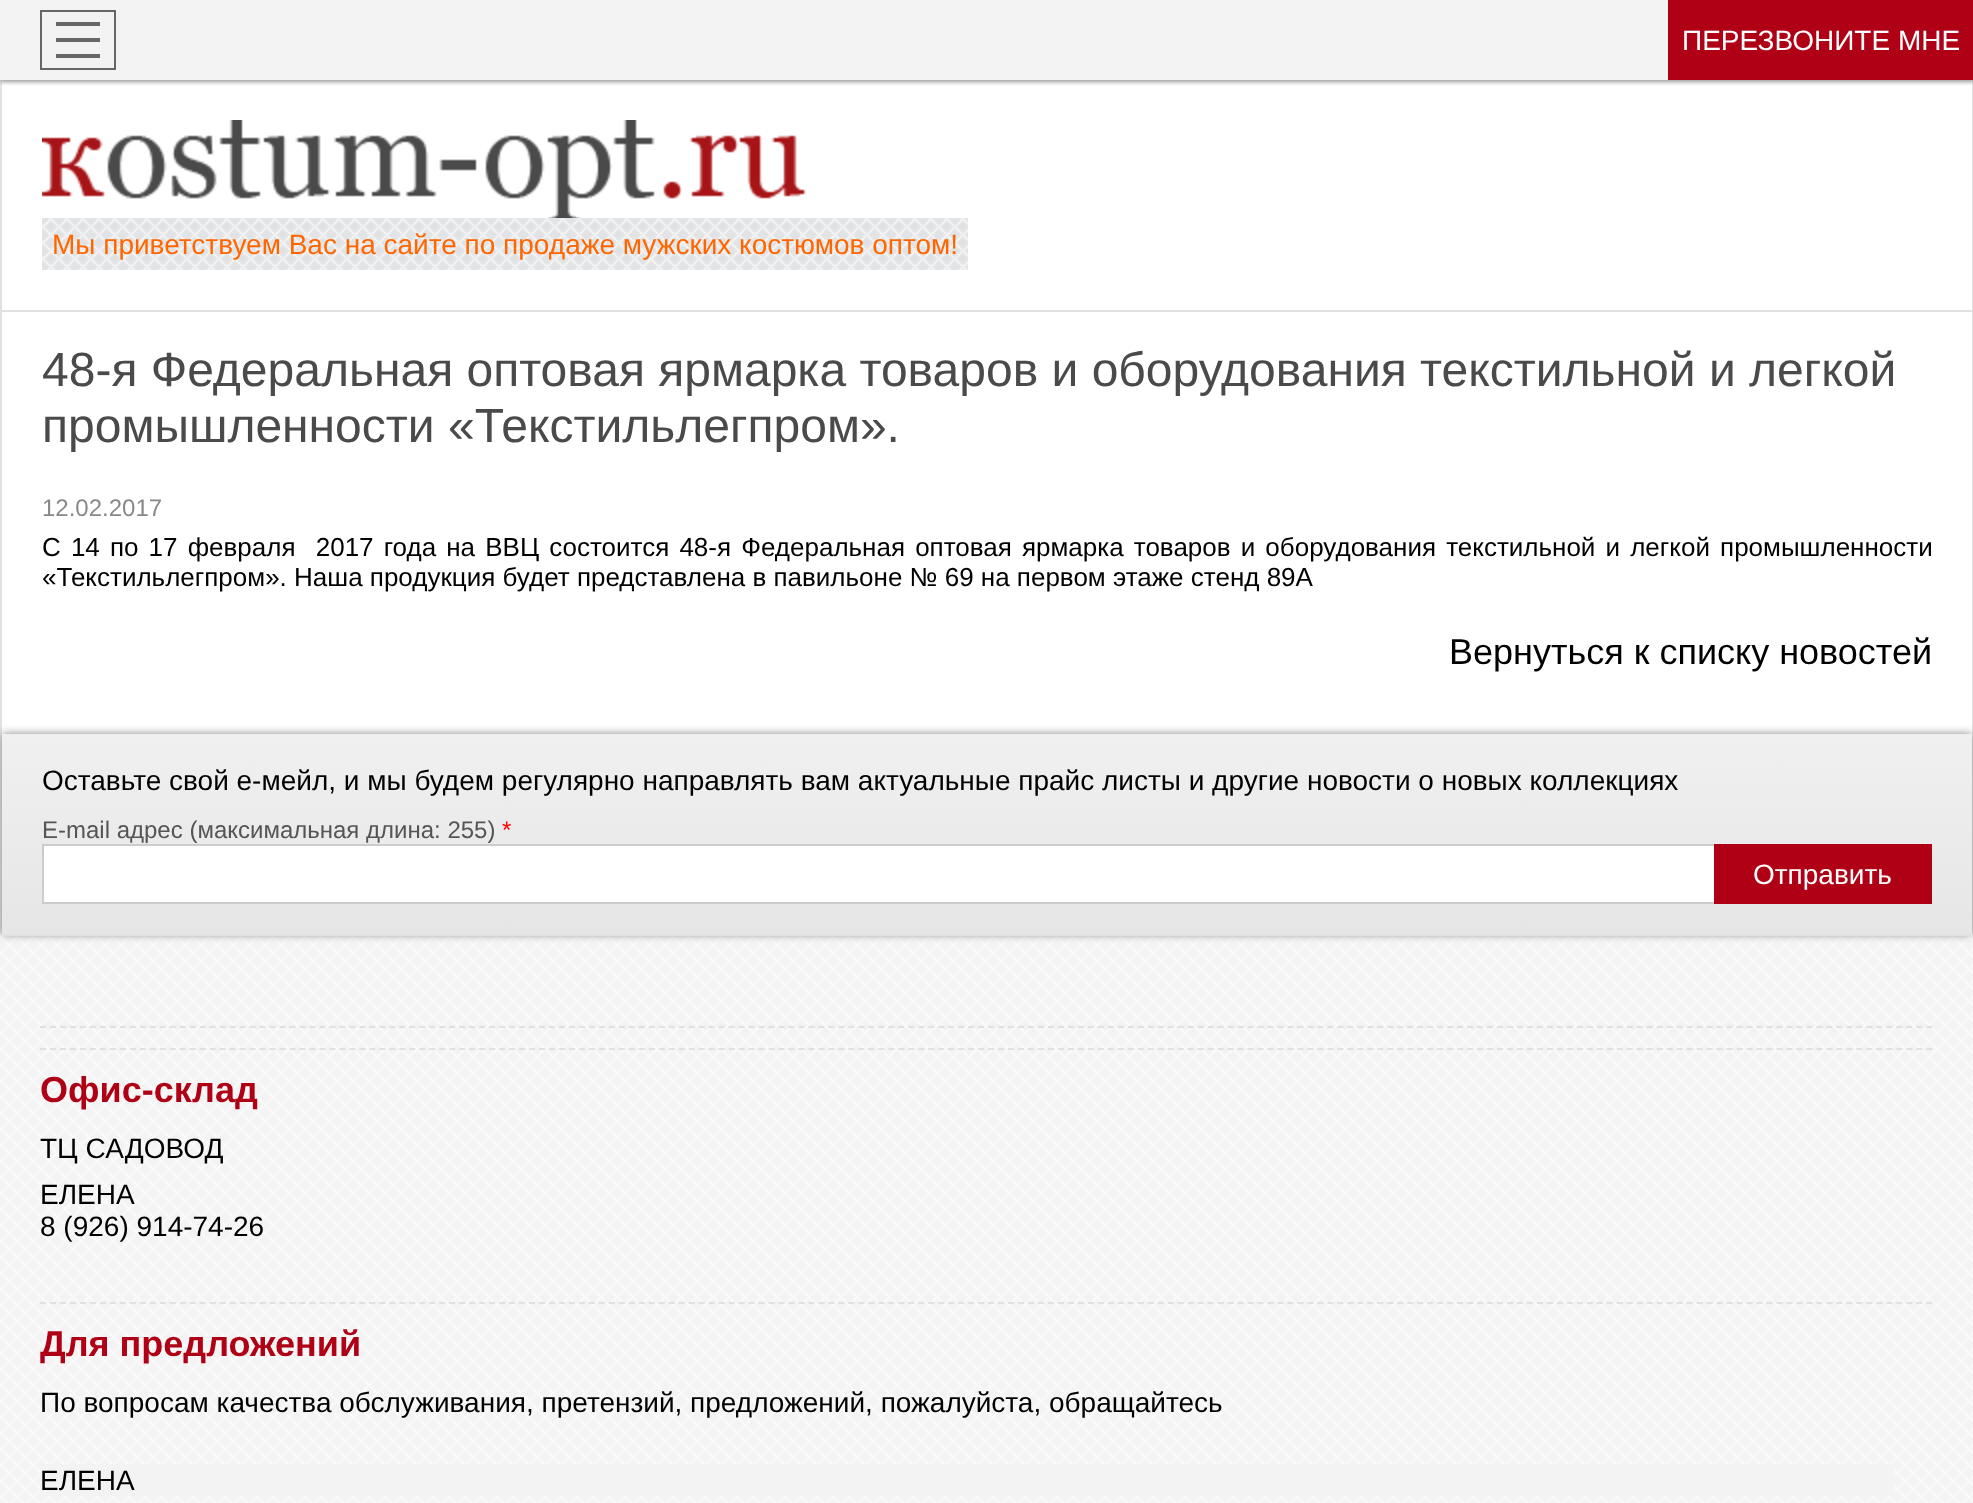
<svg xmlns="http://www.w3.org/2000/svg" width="1973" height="1503">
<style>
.a{font:28px Liberation Sans;fill:#fff}
.b{font:28px Liberation Sans;fill:#f60}
.c{font:48px Liberation Sans;fill:#4a4a4a}
.d{font:24px Liberation Sans;fill:#888}
.e{font:26px Liberation Sans;fill:#000}
.f{font:36px Liberation Sans;fill:#000}
.g{font:28px Liberation Sans;fill:#000}
.h{font:24px Liberation Sans;fill:#555}
.i{font:24px Liberation Sans;fill:#f00}
.j{font:bold 36px Liberation Sans;fill:#af0015}
</style>
<defs>
<linearGradient id="g1" gradientUnits="userSpaceOnUse" x1="987" y1="734" x2="987" y2="934"><stop offset="0" stop-color="#f0f0f0"/><stop offset="1" stop-color="#e6e6e6"/></linearGradient>
</defs>
<rect width="100%" height="100%" fill="#fff"/>
<image href="1.png" x="0" y="936" width="1973" height="567"/>
<path fill="#e1e1e1" d="M1972 80h1v854H1972z"/>
<path fill="#e1e1e1" d="M0 80h2v854H0z"/>
<path fill="#e1e1e1" d="M2 310h1970v2H2z"/>
<path fill="#999" filter="blur(2px)" d="M0 2h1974v80H0z"/>
<path fill="#f3f3f3" d="M0 0h1668v80H0z"/>
<path fill="#666" d="M56 54h44v4H56z"/>
<path fill="#666" d="M56 38h44v4H56z"/>
<path fill="#666" d="M56 22h44v4H56z"/>
<path fill="none" stroke="#666" stroke-width="2" d="M41 11h74v58H41z"/>
<path fill="#af0015" d="M1668 0h305v80H1668z"/>
<image href="2.png" x="42" y="120" width="764" height="98"/>
<image href="3.png" x="42" y="218" width="926" height="52"/>
<path fill="#888" filter="blur(5px)" d="M2 734h1970v200H2z"/>
<path fill="url(#g1)" d="M2 734h1970v200H2z"/>
<path fill="#fff" d="M44 846h1670v56H44z"/>
<path fill="none" stroke="#ccc" stroke-width="2" d="M43 845h1888v58H43z"/>
<path fill="#af0015" d="M1714 844h218v60H1714z"/>
<path fill="#e1e1e1" d="M0 934h1973v2H0z"/>
<path fill="none" stroke="#e1e1e1" stroke-width="2" stroke-dasharray="6 3.98" d="M40 1027h1894"/>
<path fill="none" stroke="#e1e1e1" stroke-width="2" stroke-dasharray="6 3.98" d="M40 1049h1894"/>
<path fill="none" stroke="#e1e1e1" stroke-width="2" stroke-dasharray="6 3.98" d="M40 1303h1894"/>
<path fill="#f3f3f3" d="M40 1464h1854v32H40z"/>
<text class="a" x="1682" y="50">ПЕРЕЗВОНИТЕ МНЕ</text>
<text class="b" x="52" y="254">Мы приветствуем Вас на сайте по продаже мужских костюмов оптом!</text>
<text class="c" x="42" y="386">48-я Федеральная оптовая ярмарка товаров и оборудования текстильной и легкой</text>
<text class="c" x="42" y="442">промышленности «Текстильлегпром».</text>
<text class="d" x="42" y="516">12.02.2017</text>
<text class="e" xml:space="preserve" x="42" y="556" word-spacing="2.9">С 14 по 17 февраля  2017 года на ВВЦ состоится 48-я Федеральная оптовая ярмарка товаров и оборудования текстильной и легкой промышленности</text>
<text class="e" x="42" y="586">«Текстильлегпром». Наша продукция будет представлена в павильоне № 69 на первом этаже стенд 89A</text>
<text class="f" x="1449" y="664">Вернуться к списку новостей</text>
<text class="g" x="42" y="790">Оставьте свой е-мейл, и мы будем регулярно направлять вам актуальные прайс листы и другие новости о новых коллекциях</text>
<text class="h" x="42" y="838">E-mail адрес (максимальная длина: 255)</text>
<text class="i" x="502" y="838">*</text>
<text class="a" x="1753" y="884">Отправить</text>
<text class="j" x="40" y="1102">Офис-склад</text>
<text class="g" x="40" y="1158">ТЦ САДОВОД</text>
<text class="g" x="40" y="1204">ЕЛЕНА</text>
<text class="g" x="40" y="1236">8 (926) 914-74-26</text>
<text class="j" x="40" y="1356">Для предложений</text>
<text class="g" x="40" y="1412">По вопросам качества обслуживания, претензий, предложений, пожалуйста, обращайтесь</text>
<text class="g" x="40" y="1490">ЕЛЕНА</text>
</svg>
